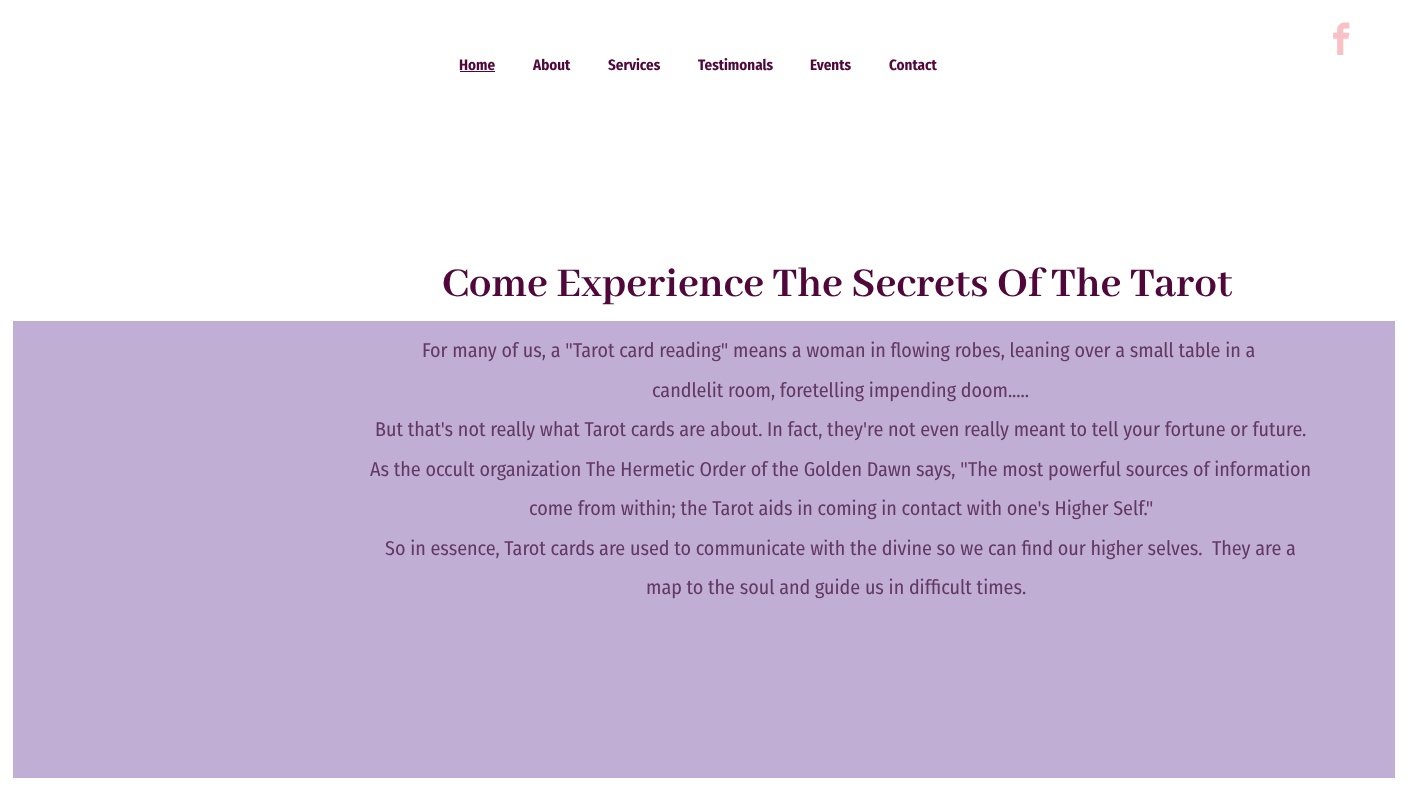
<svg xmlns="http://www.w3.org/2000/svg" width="1416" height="807">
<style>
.a{font:bold 15px Fira Sans Condensed;fill:#500739}
.b{font:bold 45px Abhaya Libre;fill:#500739}
.c{font:20px Fira Sans Condensed;fill:#623962}
</style>
<rect width="100%" height="100%" fill="#fff"/>
<image href="1.png" x="1333" y="22" width="17" height="33"/>
<path fill="#500739" d="M460 71h35v1H460z"/>
<path fill="#c0aed4" d="M13 321h1382v457H13z"/>
<text class="a" x="459" y="70">Home</text>
<text class="a" x="533" y="70">About</text>
<text class="a" x="608" y="70">Services</text>
<text class="a" x="698" y="70">Testimonals</text>
<text class="a" x="810" y="70">Events</text>
<text class="a" x="889" y="70">Contact</text>
<text class="b" x="442" y="296">Come Experience The Secrets Of The Tarot</text>
<text class="c" x="422" y="357">For many of us, a "Tarot card reading" means a woman in flowing robes, leaning over a small table in a</text>
<text class="c" x="652" y="397">candlelit room, foretelling impending doom.....</text>
<text class="c" x="375" y="436">But that's not really what Tarot cards are about. In fact, they're not even really meant to tell your fortune or future.</text>
<text class="c" x="370" y="476">As the occult organization The Hermetic Order of the Golden Dawn says, "The most powerful sources of information</text>
<text class="c" x="529" y="515">come from within; the Tarot aids in coming in contact with one's Higher Self."</text>
<text class="c" xml:space="preserve" x="385" y="555">So in essence, Tarot cards are used to communicate with the divine so we can find our higher selves.  They are a</text>
<text class="c" x="646" y="594">map to the soul and guide us in difficult times.</text>
</svg>
